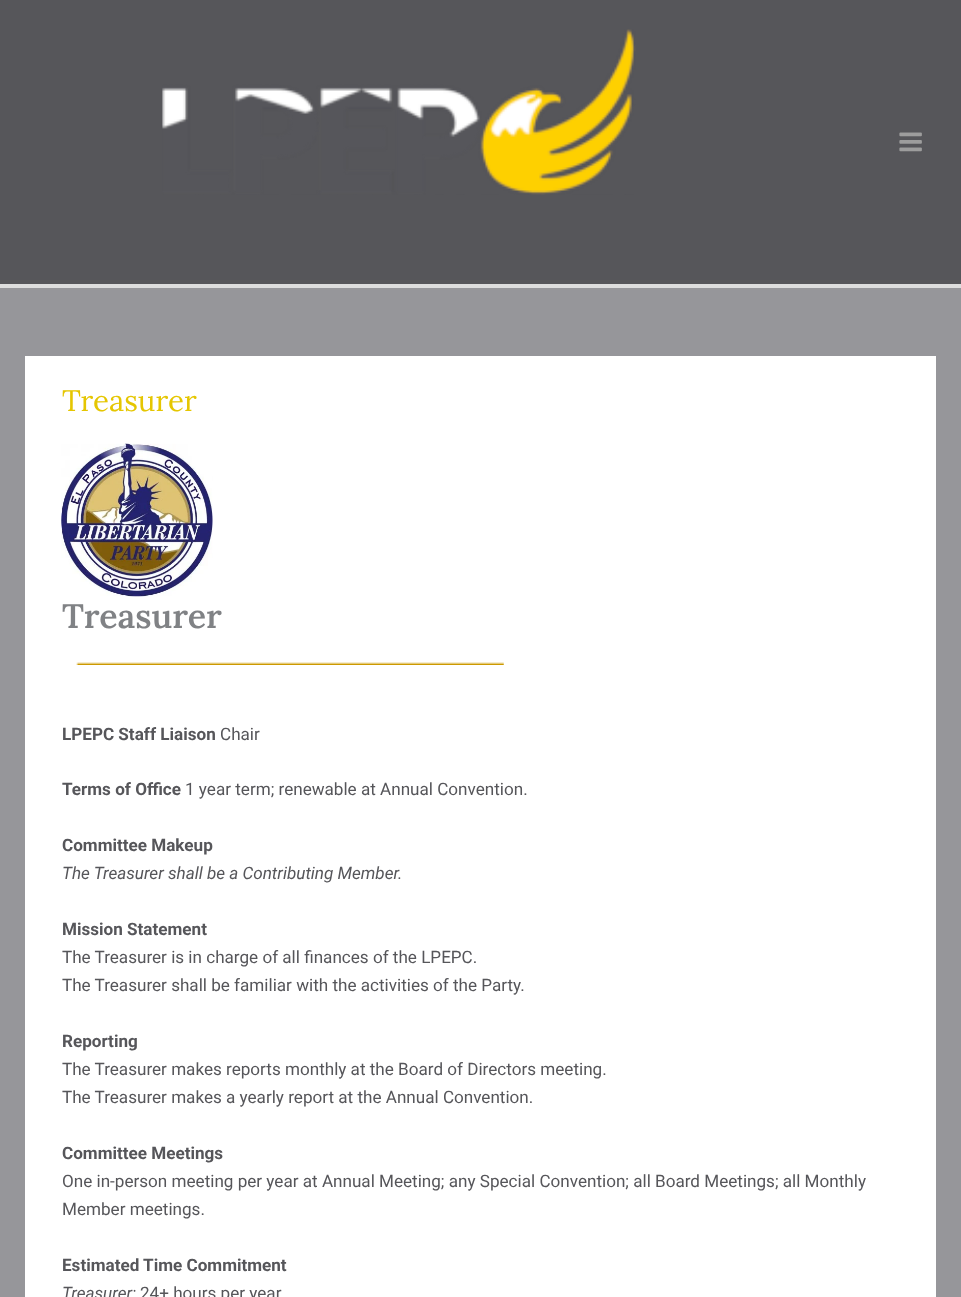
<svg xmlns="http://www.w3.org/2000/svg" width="961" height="1297">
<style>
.a{font:29.5px Lora;fill:#e5c601}
.b{font:600 34px Lora;fill:#808285}
.c{font:bold 17.1px Roboto;fill:#56565a}
.d{font:17.1px Roboto;fill:#56565a}
.e{font:italic 17.1px Roboto;fill:#56565a}
</style>
<rect width="100%" height="100%" fill="#96969a"/>
<path fill="#56565a" d="M0 0h961v284H0z"/>
<path fill="#ddd" d="M0 284h961v4H0z"/>
<image href="1.png" x="162" y="29" width="474" height="166"/>
<image href="2.png" x="899" y="132" width="23" height="20"/>
<path fill="#fff" d="M25 356h911v941H25z"/>
<image href="3.png" x="61" y="443" width="152" height="154"/>
<image href="4.png" x="76" y="662" width="428" height="3"/>
<text class="a" x="62" y="411">Treasurer</text>
<text class="b" x="62" y="628">Treasurer</text>
<text class="c" x="62" y="740">LPEPC Staff Liaison</text>
<text class="d" x="220" y="740">Chair</text>
<text class="c" x="62" y="795">Terms of Office</text>
<text class="d" x="185" y="795">1 year term; renewable at Annual Convention.</text>
<text class="c" x="62" y="851">Committee Makeup</text>
<text class="e" x="62" y="879">The Treasurer shall be a Contributing Member.</text>
<text class="c" x="62" y="935">Mission Statement</text>
<text class="d" x="62" y="963">The Treasurer is in charge of all finances of the LPEPC.</text>
<text class="d" x="62" y="991">The Treasurer shall be familiar with the activities of the Party.</text>
<text class="c" x="62" y="1047">Reporting</text>
<text class="d" x="62" y="1075">The Treasurer makes reports monthly at the Board of Directors meeting.</text>
<text class="d" x="62" y="1103">The Treasurer makes a yearly report at the Annual Convention.</text>
<text class="c" x="62" y="1159">Committee Meetings</text>
<text class="d" x="62" y="1187">One in-person meeting per year at Annual Meeting; any Special Convention; all Board Meetings; all Monthly</text>
<text class="d" x="62" y="1215">Member meetings.</text>
<text class="c" x="62" y="1271">Estimated Time Commitment</text>
<text class="e" x="62" y="1299">Treasurer:</text>
<text class="d" x="140" y="1299">24+ hours per year</text>
</svg>
